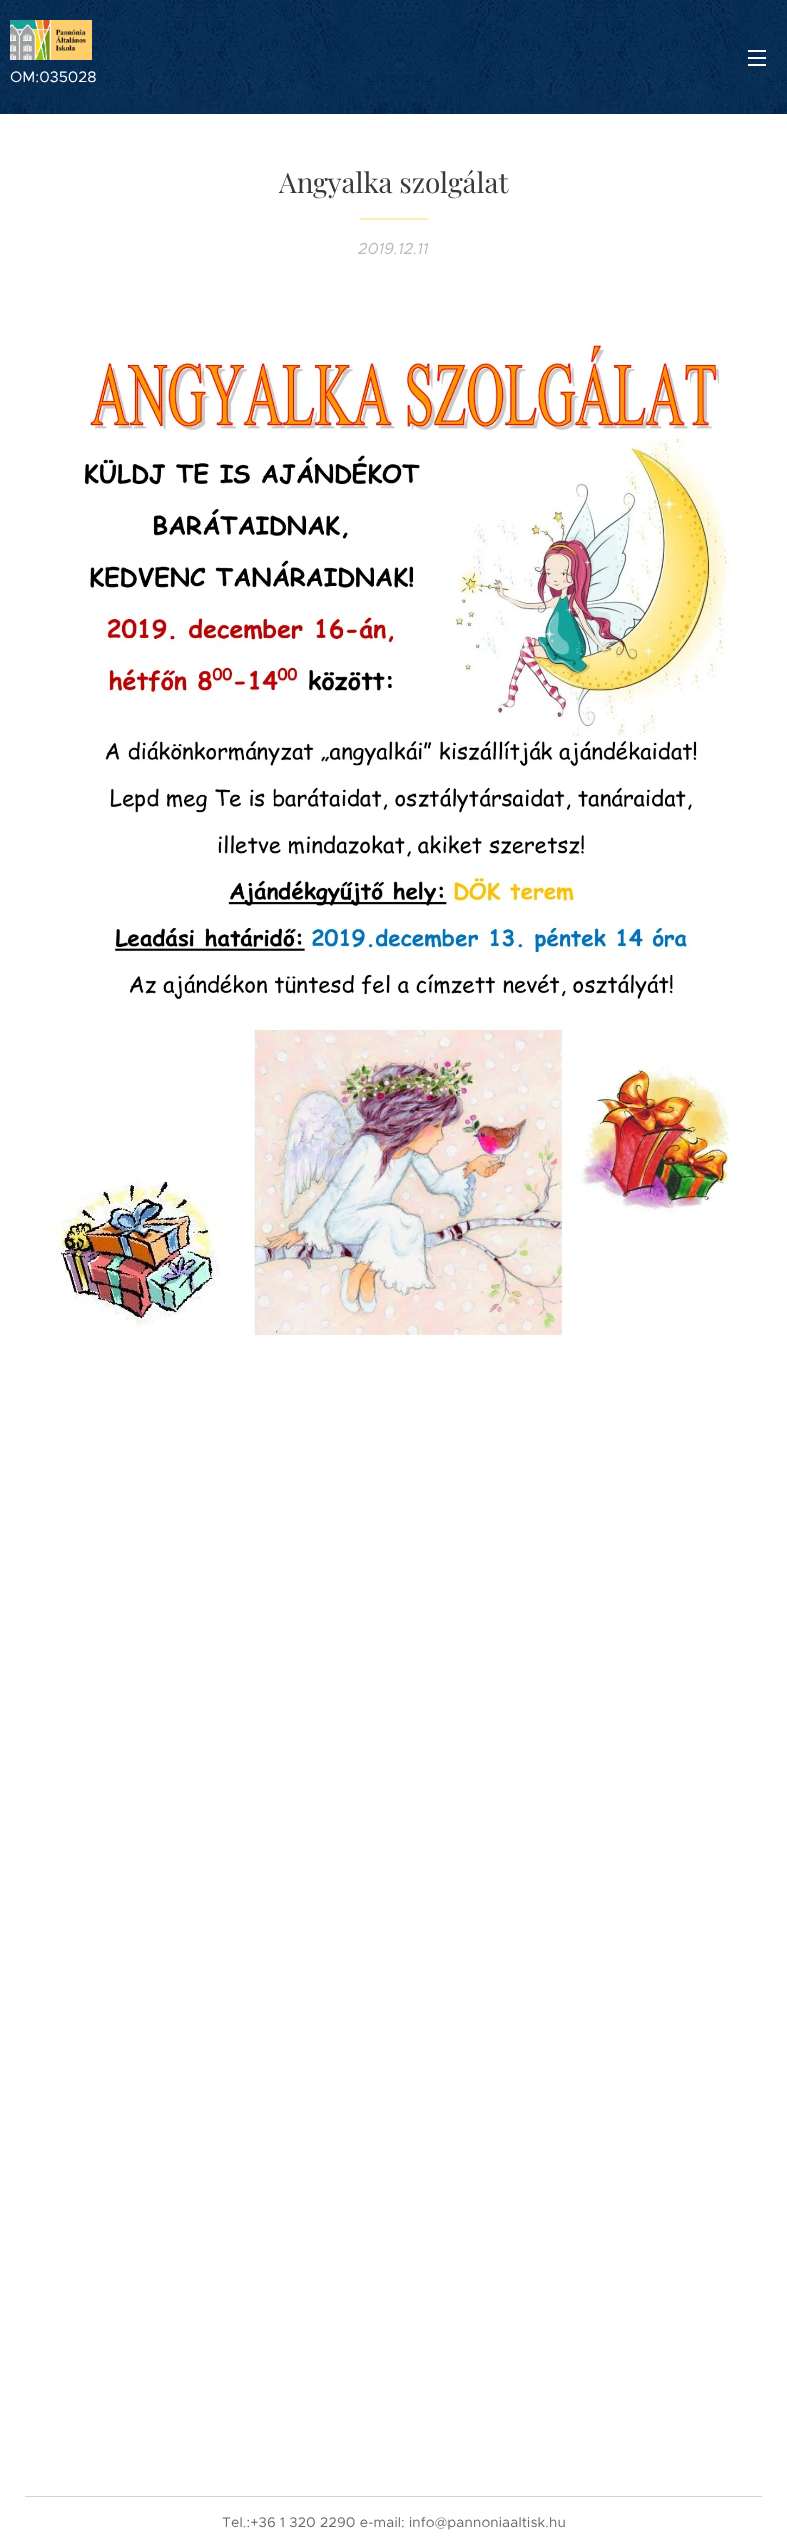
<svg xmlns="http://www.w3.org/2000/svg" width="787" height="2548">
<style>
.a{font:15.25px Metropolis;fill:#fff}
.b{font:28px Playfair Display;fill:#393939}
.c{font:italic 16px Metropolis;fill:#bababa}
.d{font:14px Metropolis;letter-spacing:0.15px;fill:#666}
</style>
<rect width="100%" height="100%" fill="#fff"/>
<image href="1.png" x="0" y="0" width="787" height="114"/>
<path fill="#fff" d="M748 57h18v2H748z"/>
<path fill="#fff" d="M748 50h18v2H748z"/>
<path fill="#fff" d="M748 64h18v2H748z"/>
<image href="2.png" x="10" y="20" width="82" height="40"/>
<path fill="#ffecb3" d="M360 218h68v2H360z"/>
<image href="3.png" x="53" y="345" width="678" height="992"/>
<path fill="#d4d4d4" d="M25 2496h737v1H25z"/>
<text class="a" x="10" y="82">OM:035028</text>
<text class="b" x="279" y="193">Angyalka szolgálat</text>
<text class="c" x="358" y="254">2019.12.11</text>
<text class="d" x="222" y="2527">Tel.:+36 1 320 2290 e-mail: info@pannoniaaltisk.hu</text>
</svg>
